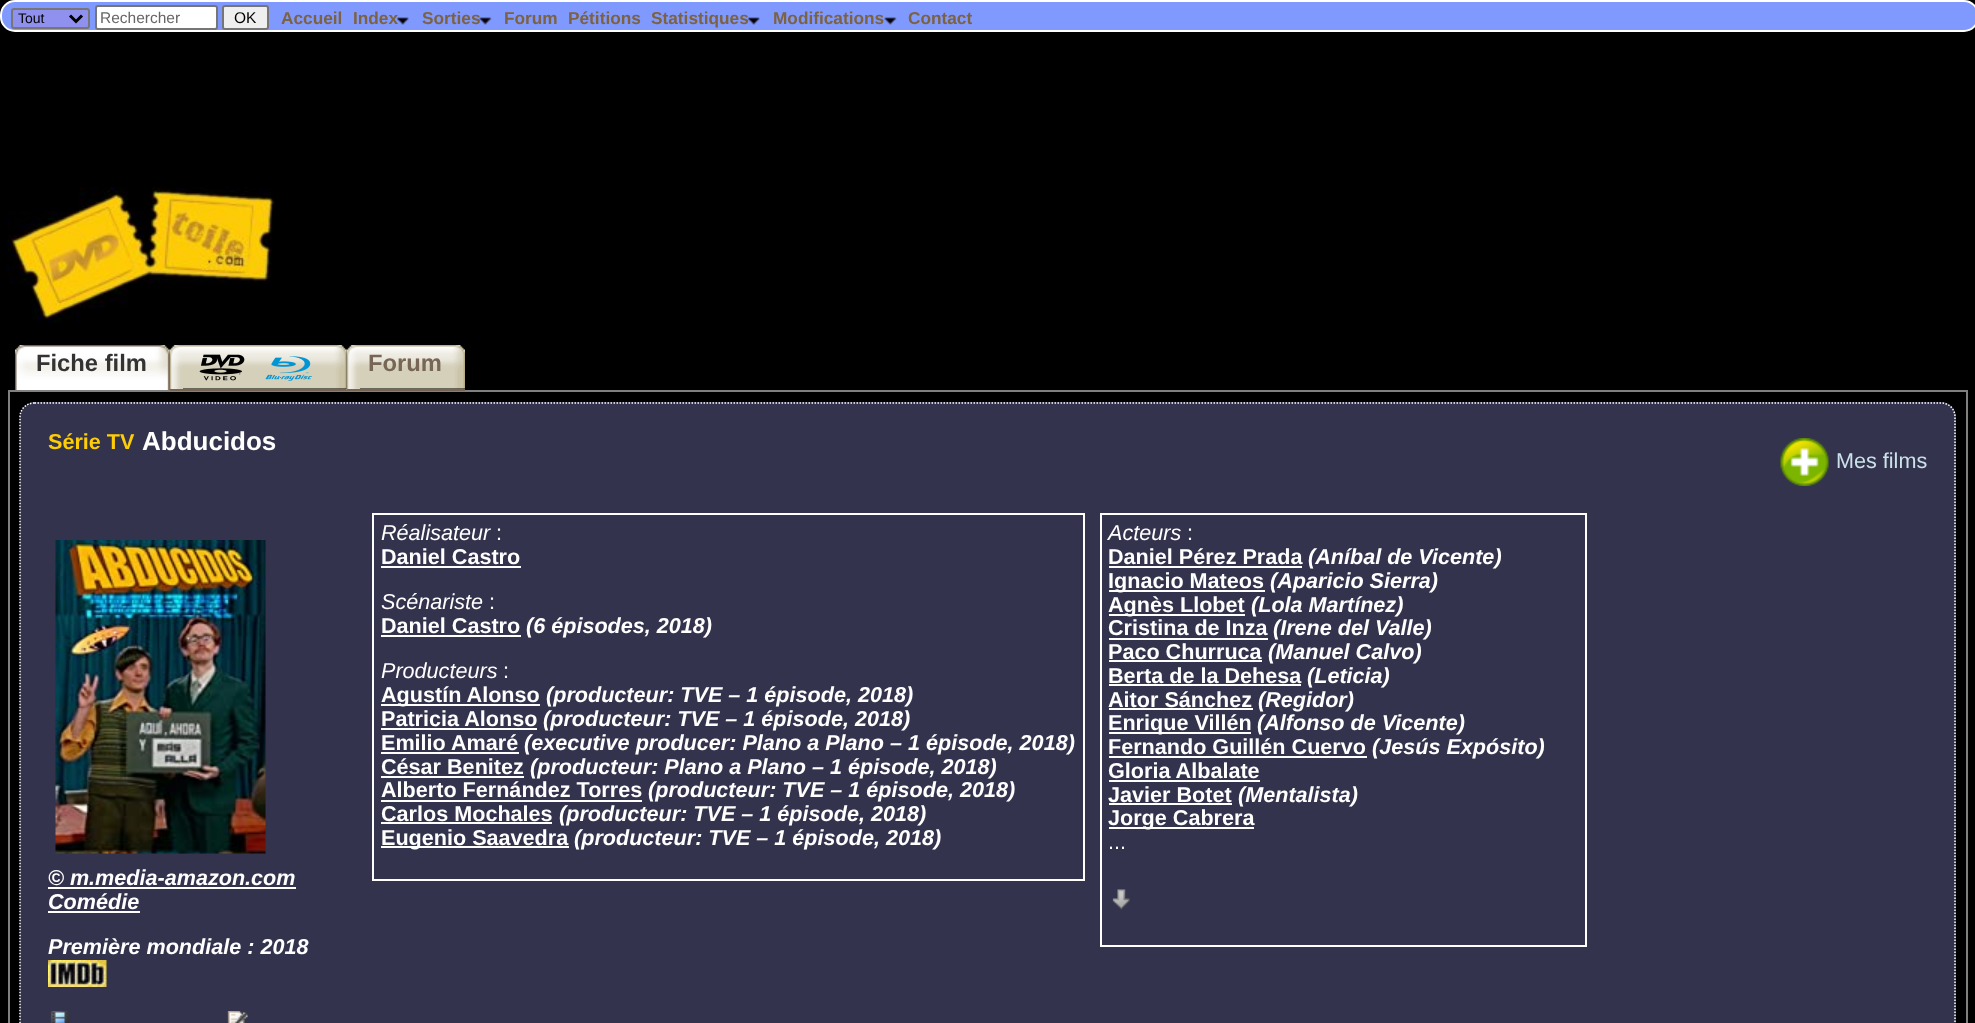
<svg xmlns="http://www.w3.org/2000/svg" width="1975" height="1023">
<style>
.a{font:14px Liberation Sans;fill:#000}
.b{font:15.5px Liberation Sans;fill:#666}
.c{font:15.5px Liberation Sans;fill:#000}
.d{font:bold 17.25px Liberation Sans;fill:#7c6240}
.e{font:bold 23.75px Liberation Sans;fill:#333}
.f{font:bold 23.75px Liberation Sans;fill:#765}
.g{font:bold 21.6px Liberation Sans;fill:#fecd07}
.h{font:bold 26px Liberation Sans;fill:#fff}
.i{font:21.6px Liberation Sans;fill:#cbe2ea}
.j{font:italic 21.6px Liberation Sans;fill:#fff}
.k{font:21.6px Liberation Sans;fill:#fff}
.l{font:bold 21.6px Liberation Sans;fill:#fff}
.m{font:italic bold 21.6px Liberation Sans;fill:#fff}
</style>
<rect width="100%" height="100%" fill="#000"/>
<rect fill="#8099fe" stroke="#fff" stroke-width="2" x="1" y="1" width="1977" height="30" rx="14"/>
<rect fill="#9090ee" stroke="#767676" stroke-width="2" x="12" y="9" width="77" height="19" rx="2"/>
<path fill="none" stroke="#000" stroke-width="3" d="M70 15.5l6 6l6-6"/>
<rect fill="#fff" stroke="#767676" stroke-width="2" x="96" y="6" width="121" height="23" rx="2"/>
<rect fill="#efefef" stroke="#767676" stroke-width="2" x="223" y="6" width="45" height="23" rx="2"/>
<image href="4.png" x="884" y="17" width="13" height="8"/>
<image href="5.png" x="7" y="187" width="268" height="136"/>
<image href="6.png" x="15" y="345" width="13" height="45"/>
<image href="7.png" x="28" y="345" width="142" height="45"/>
<image href="8.png" x="169" y="345" width="14" height="45"/>
<path fill="none" stroke="#808080" stroke-width="2" d="M9 391h1958v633H9z"/>
<path fill="#765" d="M170 389h177v2H170z"/>
<image href="9.png" x="183" y="345" width="164" height="44"/>
<image href="10.png" x="199" y="354" width="46" height="27"/>
<image href="11.png" x="265" y="356" width="47" height="25"/>
<image href="12.png" x="346" y="345" width="14" height="45"/>
<path fill="#765" d="M347 389h118v2H347z"/>
<image href="13.png" x="360" y="345" width="105" height="44"/>
<rect fill="#33334d" x="20" y="402" width="1936" height="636" rx="15"/>
<path fill="none" stroke="#fff" stroke-width="1.5" stroke-dasharray="1.5 1.5" d="M34.5 403h1906.5c8 0 14 6 14 14v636c0 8-6 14-14 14h-1906.5c-8 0-14.5-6-14.5-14v-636c0-8 6.5-14 14.5-14z"/>
<image href="14.png" x="1780" y="438" width="49" height="48"/>
<path fill="none" stroke="#fff" stroke-width="2" d="M373 514h711v366H373z"/>
<path fill="#fff" d="M381 566h140v2H381z"/>
<path fill="#fff" d="M381 635h140v2H381z"/>
<path fill="#fff" d="M381 704h159v2H381z"/>
<path fill="#fff" d="M381 728h156v2H381z"/>
<path fill="#fff" d="M381 752h138v2H381z"/>
<path fill="#fff" d="M381 776h143v2H381z"/>
<path fill="#fff" d="M381 800h261v2H381z"/>
<path fill="#fff" d="M381 822h171v2H381z"/>
<path fill="#fff" d="M381 846h188v2H381z"/>
<path fill="none" stroke="#fff" stroke-width="2" d="M1101 514h485v432H1101z"/>
<path fill="#fff" d="M1109 566h193v2H1109z"/>
<path fill="#fff" d="M1109 590h156v2H1109z"/>
<path fill="#fff" d="M1109 614h136v2H1109z"/>
<path fill="#fff" d="M1109 638h159v2H1109z"/>
<path fill="#fff" d="M1109 660h153v2H1109z"/>
<path fill="#fff" d="M1109 684h192v2H1109z"/>
<path fill="#fff" d="M1109 708h144v2H1109z"/>
<path fill="#fff" d="M1109 732h142v2H1109z"/>
<path fill="#fff" d="M1109 756h258v2H1109z"/>
<path fill="#fff" d="M1109 780h151v2H1109z"/>
<path fill="#fff" d="M1109 803h123v2H1109z"/>
<path fill="#fff" d="M1109 827h145v2H1109z"/>
<image href="15.png" x="1112" y="889" width="18" height="21"/>
<image href="16.png" x="55" y="540" width="211" height="314"/>
<path fill="#fff" d="M48 887h248v2H48z"/>
<path fill="#fff" d="M48 911h92v2H48z"/>
<image href="17.png" x="48" y="960" width="59" height="27"/>
<image href="18.png" x="50" y="1011" width="20" height="12"/>
<image href="19.png" x="227" y="1011" width="21" height="12"/>
<text class="a" x="18" y="23">Tout</text>
<text class="b" x="100" y="23">Rechercher</text>
<text class="c" x="234" y="23">OK</text>
<text class="d" x="281" y="24">Accueil</text>
<text class="d" x="353" y="24">Index</text>
<image href="1.png" x="397" y="17" width="12" height="8"/>
<text class="d" x="422" y="24">Sorties</text>
<image href="2.png" x="479" y="17" width="13" height="8"/>
<text class="d" x="504" y="24">Forum</text>
<text class="d" x="568" y="24">Pétitions</text>
<text class="d" x="651" y="24">Statistiques</text>
<image href="3.png" x="748" y="17" width="12" height="8"/>
<text class="d" x="773" y="24">Modifications</text>
<text class="d" x="908" y="24">Contact</text>
<text class="e" x="36" y="371">Fiche film</text>
<text class="f" x="368" y="371">Forum</text>
<text class="g" x="48" y="449">Série TV</text>
<text class="h" x="142" y="450">Abducidos</text>
<text class="i" x="1836" y="468">Mes films</text>
<text class="j" x="381" y="540">Réalisateur</text>
<text class="k" x="496" y="540">:</text>
<text class="l" x="381" y="564">Daniel Castro</text>
<text class="j" x="381" y="609">Scénariste</text>
<text class="k" x="489" y="609">:</text>
<text class="l" x="381" y="633">Daniel Castro</text>
<text class="m" x="526" y="633">(6 épisodes, 2018)</text>
<text class="j" x="381" y="678">Producteurs</text>
<text class="k" x="503" y="678">:</text>
<text class="l" x="381" y="702">Agustín Alonso</text>
<text class="m" x="546" y="702">(producteur: TVE – 1 épisode, 2018)</text>
<text class="l" x="381" y="726">Patricia Alonso</text>
<text class="m" x="543" y="726">(producteur: TVE – 1 épisode, 2018)</text>
<text class="l" x="381" y="750">Emilio Amaré</text>
<text class="m" x="524" y="750">(executive producer: Plano a Plano – 1 épisode, 2018)</text>
<text class="l" x="381" y="774">César Benitez</text>
<text class="m" x="530" y="774">(producteur: Plano a Plano – 1 épisode, 2018)</text>
<text class="l" x="381" y="797">Alberto Fernández Torres</text>
<text class="m" x="648" y="797">(producteur: TVE – 1 épisode, 2018)</text>
<text class="l" x="381" y="821">Carlos Mochales</text>
<text class="m" x="559" y="821">(producteur: TVE – 1 épisode, 2018)</text>
<text class="l" x="381" y="845">Eugenio Saavedra</text>
<text class="m" x="574" y="845">(producteur: TVE – 1 épisode, 2018)</text>
<text class="j" x="1108" y="540">Acteurs</text>
<text class="k" x="1187" y="540">:</text>
<text class="l" x="1108" y="564">Daniel Pérez Prada</text>
<text class="m" x="1308" y="564">(Aníbal de Vicente)</text>
<text class="l" x="1108" y="588">Ignacio Mateos</text>
<text class="m" x="1270" y="588">(Aparicio Sierra)</text>
<text class="l" x="1108" y="612">Agnès Llobet</text>
<text class="m" x="1251" y="612">(Lola Martínez)</text>
<text class="l" x="1108" y="635">Cristina de Inza</text>
<text class="m" x="1273" y="635">(Irene del Valle)</text>
<text class="l" x="1108" y="659">Paco Churruca</text>
<text class="m" x="1268" y="659">(Manuel Calvo)</text>
<text class="l" x="1108" y="683">Berta de la Dehesa</text>
<text class="m" x="1307" y="683">(Leticia)</text>
<text class="l" x="1108" y="707">Aitor Sánchez</text>
<text class="m" x="1258" y="707">(Regidor)</text>
<text class="l" x="1108" y="730">Enrique Villén</text>
<text class="m" x="1257" y="730">(Alfonso de Vicente)</text>
<text class="l" x="1108" y="754">Fernando Guillén Cuervo</text>
<text class="m" x="1372" y="754">(Jesús Expósito)</text>
<text class="l" x="1108" y="778">Gloria Albalate</text>
<text class="l" x="1108" y="802">Javier Botet</text>
<text class="m" x="1238" y="802">(Mentalista)</text>
<text class="l" x="1108" y="825">Jorge Cabrera</text>
<text class="k" x="1108" y="849">...</text>
<text class="m" x="48" y="885">© m.media-amazon.com</text>
<text class="m" x="48" y="909">Comédie</text>
<text class="m" x="48" y="954">Première mondiale : 2018</text>
</svg>
